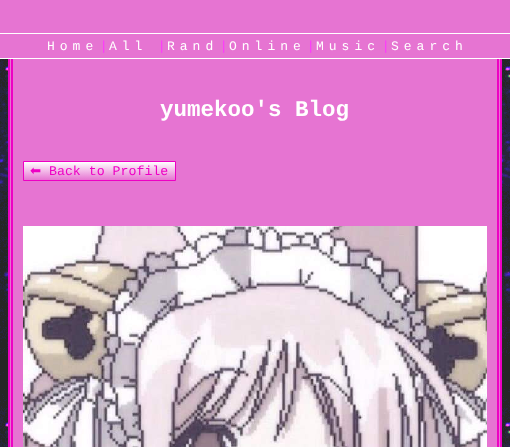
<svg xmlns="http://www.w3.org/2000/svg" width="510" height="447">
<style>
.a{font:13px Liberation Mono;letter-spacing:5px;fill:#fff}
.b{font:13px Liberation Sans;fill:#ff37ff}
.c{font:bold 22.5px Liberation Mono;fill:#fff}
.d{font:13.25px DejaVu Sans;fill:#ee00c4}
.e{font:13.25px Liberation Mono;fill:#ee00c4}
</style>
<defs>
<linearGradient id="g1" gradientUnits="userSpaceOnUse" x1="100" y1="162" x2="100" y2="180"><stop offset="0" stop-color="#fff"/><stop offset="1" stop-color="#e674d2"/></linearGradient>
</defs>
<rect width="100%" height="100%" fill="#fff"/>
<image href="1.png" x="0" y="59" width="510" height="388"/>
<path fill="#e674d2" d="M10 59h490v388H10z"/>
<path fill="none" stroke="#ee00c4" stroke-width="2" d="M9 54h492v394H9z"/>
<path fill="none" stroke="#ee00c4" stroke-width="2" d="M12 57h486v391H12z"/>
<path fill="#e674d2" d="M0 0h510v33H0z"/>
<path fill="#e674d2" d="M0 34h510v24H0z"/>
<path fill="#fff" d="M0 58h510v1H0z"/>
<path fill="url(#g1)" d="M24 162h151v18H24z"/>
<path fill="none" stroke="#ee00c4" d="M23.5 161.5h152v19H23.5z"/>
<image href="2.png" x="23" y="226" width="464" height="221"/>
<text class="a" x="47" y="50">Home</text>
<text class="b" x="102" y="50">|</text>
<text class="a" x="109" y="50">All</text>
<text class="b" x="160" y="50">|</text>
<text class="a" x="167" y="50">Rand</text>
<text class="b" x="222" y="50">|</text>
<text class="a" x="229" y="50">Online</text>
<text class="b" x="309" y="50">|</text>
<text class="a" x="316" y="50">Music</text>
<text class="b" x="384" y="50">|</text>
<text class="a" x="391" y="50">Search</text>
<text class="c" x="160" y="116">yumekoo's Blog</text>
<text class="d" x="30" y="175">⬅</text>
<text class="e" x="49" y="175">Back to Profile</text>
</svg>
